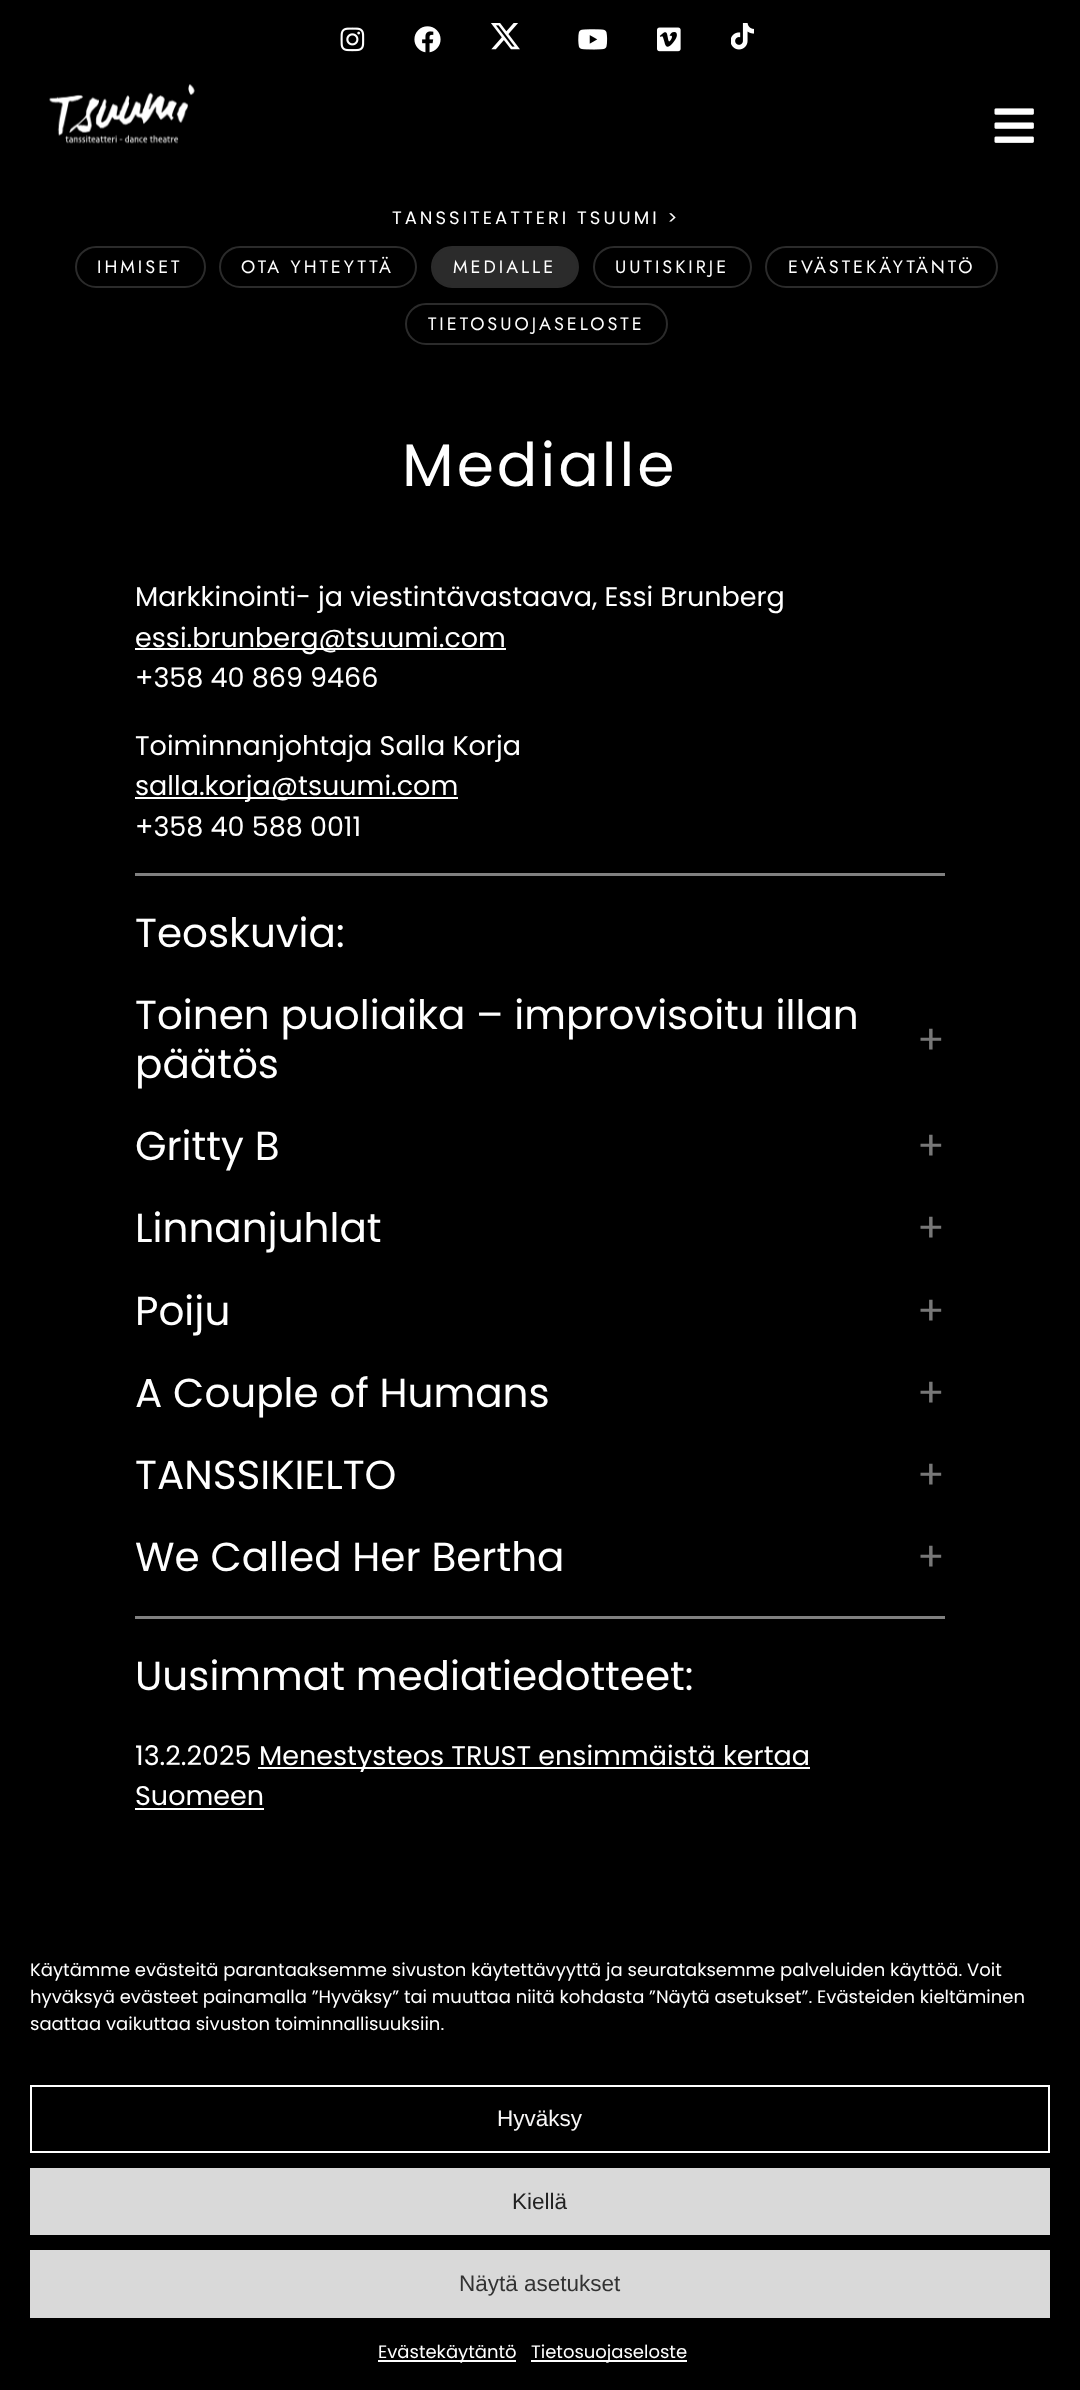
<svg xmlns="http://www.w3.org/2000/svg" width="1080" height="2390">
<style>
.a{font:18px Poppins;letter-spacing:3px;fill:#fff}
.b{font:18px Jost;letter-spacing:3px;fill:#fff}
.c{font:60px Poppins;letter-spacing:3px;fill:#fff}
.d{font:27px Poppins;fill:#fff}
.e{font:40.5px Poppins;fill:#fff}
.f{font:40.5px Poppins;fill:#777}
.g{font:18px Poppins;fill:#fff}
.h{font:22.5px Liberation Sans;fill:#f9f8f8}
.i{font:22.5px Liberation Sans;fill:#222}
.j{font:22.5px Liberation Sans;fill:#333}
</style>
<rect width="100%" height="100%" fill="#000"/>
<image href="1.png" x="340" y="27" width="25" height="25"/>
<image href="2.png" x="414" y="26" width="27" height="27"/>
<image href="3.png" x="491" y="23" width="29" height="27"/>
<image href="4.png" x="578" y="29" width="30" height="21"/>
<image href="5.png" x="657" y="27" width="24" height="25"/>
<image href="6.png" x="731" y="23" width="23" height="27"/>
<image href="7.png" x="49" y="84" width="146" height="60"/>
<image href="8.png" x="994" y="108" width="40" height="35"/>
<rect fill="none" stroke="#2b2b2b" stroke-width="2" x="76" y="247" width="129" height="40" rx="20"/>
<rect fill="none" stroke="#2b2b2b" stroke-width="2" x="220" y="247" width="196" height="40" rx="20"/>
<rect fill="#2b2b2b" stroke="#2b2b2b" stroke-width="2" x="432" y="247" width="146" height="40" rx="20"/>
<rect fill="none" stroke="#2b2b2b" stroke-width="2" x="594" y="247" width="157" height="40" rx="20"/>
<rect fill="none" stroke="#2b2b2b" stroke-width="2" x="766" y="247" width="231" height="40" rx="20"/>
<rect fill="none" stroke="#2b2b2b" stroke-width="2" x="406" y="304" width="261" height="40" rx="20"/>
<path fill="#fff" d="M135 648h371v2H135z"/>
<path fill="#fff" d="M135 797h323v2H135z"/>
<path fill="#808080" d="M135 873h810v3H135z"/>
<path fill="#808080" d="M135 1616h810v3H135z"/>
<path fill="#fff" d="M258 1767h552v2H258z"/>
<path fill="#fff" d="M135 1808h129v2H135z"/>
<path fill="none" stroke="#fff" stroke-width="2" d="M31 2086h1018v66H31z"/>
<path fill="#d9d9d9" d="M30 2168h1020v67H30z"/>
<path fill="#d9d9d9" d="M30 2250h1020v68H30z"/>
<path fill="#fff" d="M378 2360h138v2H378z"/>
<path fill="#fff" d="M531 2360h156v2H531z"/>
<text class="a" x="392" y="224">TANSSITEATTERI TSUUMI &gt;</text>
<text class="b" x="97" y="273">IHMISET</text>
<text class="b" x="241" y="273">OTA YHTEYTTÄ</text>
<text class="b" x="453" y="273">MEDIALLE</text>
<text class="b" x="615" y="273">UUTISKIRJE</text>
<text class="b" x="788" y="273">EVÄSTEKÄYTÄNTÖ</text>
<text class="b" x="428" y="330">TIETOSUOJASELOSTE</text>
<text class="c" x="402" y="486">Medialle</text>
<text class="d" x="135" y="606">Markkinointi- ja viestintävastaava, Essi Brunberg</text>
<text class="d" x="135" y="647">essi.brunberg@tsuumi.com</text>
<text class="d" x="135" y="687">+358 40 869 9466</text>
<text class="d" x="135" y="755">Toiminnanjohtaja Salla Korja</text>
<text class="d" x="135" y="795">salla.korja@tsuumi.com</text>
<text class="d" x="135" y="836">+358 40 588 0011</text>
<text class="e" x="135" y="947">Teoskuvia:</text>
<text class="e" x="135" y="1029">Toinen puoliaika – improvisoitu illan</text>
<text class="f" x="917" y="1054">+</text>
<text class="e" x="135" y="1078">päätös</text>
<text class="e" x="135" y="1160">Gritty B</text>
<text class="f" x="917" y="1160">+</text>
<text class="e" x="135" y="1242">Linnanjuhlat</text>
<text class="f" x="917" y="1242">+</text>
<text class="e" x="135" y="1325">Poiju</text>
<text class="f" x="917" y="1325">+</text>
<text class="e" x="135" y="1407">A Couple of Humans</text>
<text class="f" x="917" y="1407">+</text>
<text class="e" x="135" y="1489">TANSSIKIELTO</text>
<text class="f" x="917" y="1489">+</text>
<text class="e" x="135" y="1571">We Called Her Bertha</text>
<text class="f" x="917" y="1571">+</text>
<text class="e" x="135" y="1690">Uusimmat mediatiedotteet:</text>
<text class="d" x="135" y="1765">13.2.2025</text>
<text class="d" x="259" y="1765">Menestysteos TRUST ensimmäistä kertaa</text>
<text class="d" x="135" y="1805">Suomeen</text>
<text class="g" x="30" y="1976">Käytämme evästeitä parantaaksemme sivuston käytettävyyttä ja seurataksemme palveluiden käyttöä. Voit</text>
<text class="g" x="30" y="2003">hyväksyä evästeet painamalla ”Hyväksy” tai muuttaa niitä kohdasta ”Näytä asetukset”. Evästeiden kieltäminen</text>
<text class="g" x="30" y="2030">saattaa vaikuttaa sivuston toiminnallisuuksiin.</text>
<text class="h" x="497" y="2126">Hyväksy</text>
<text class="i" x="512" y="2209">Kiellä</text>
<text class="j" x="459" y="2291">Näytä asetukset</text>
<text class="g" x="378" y="2358">Evästekäytäntö</text>
<text class="g" x="531" y="2358">Tietosuojaseloste</text>
</svg>
